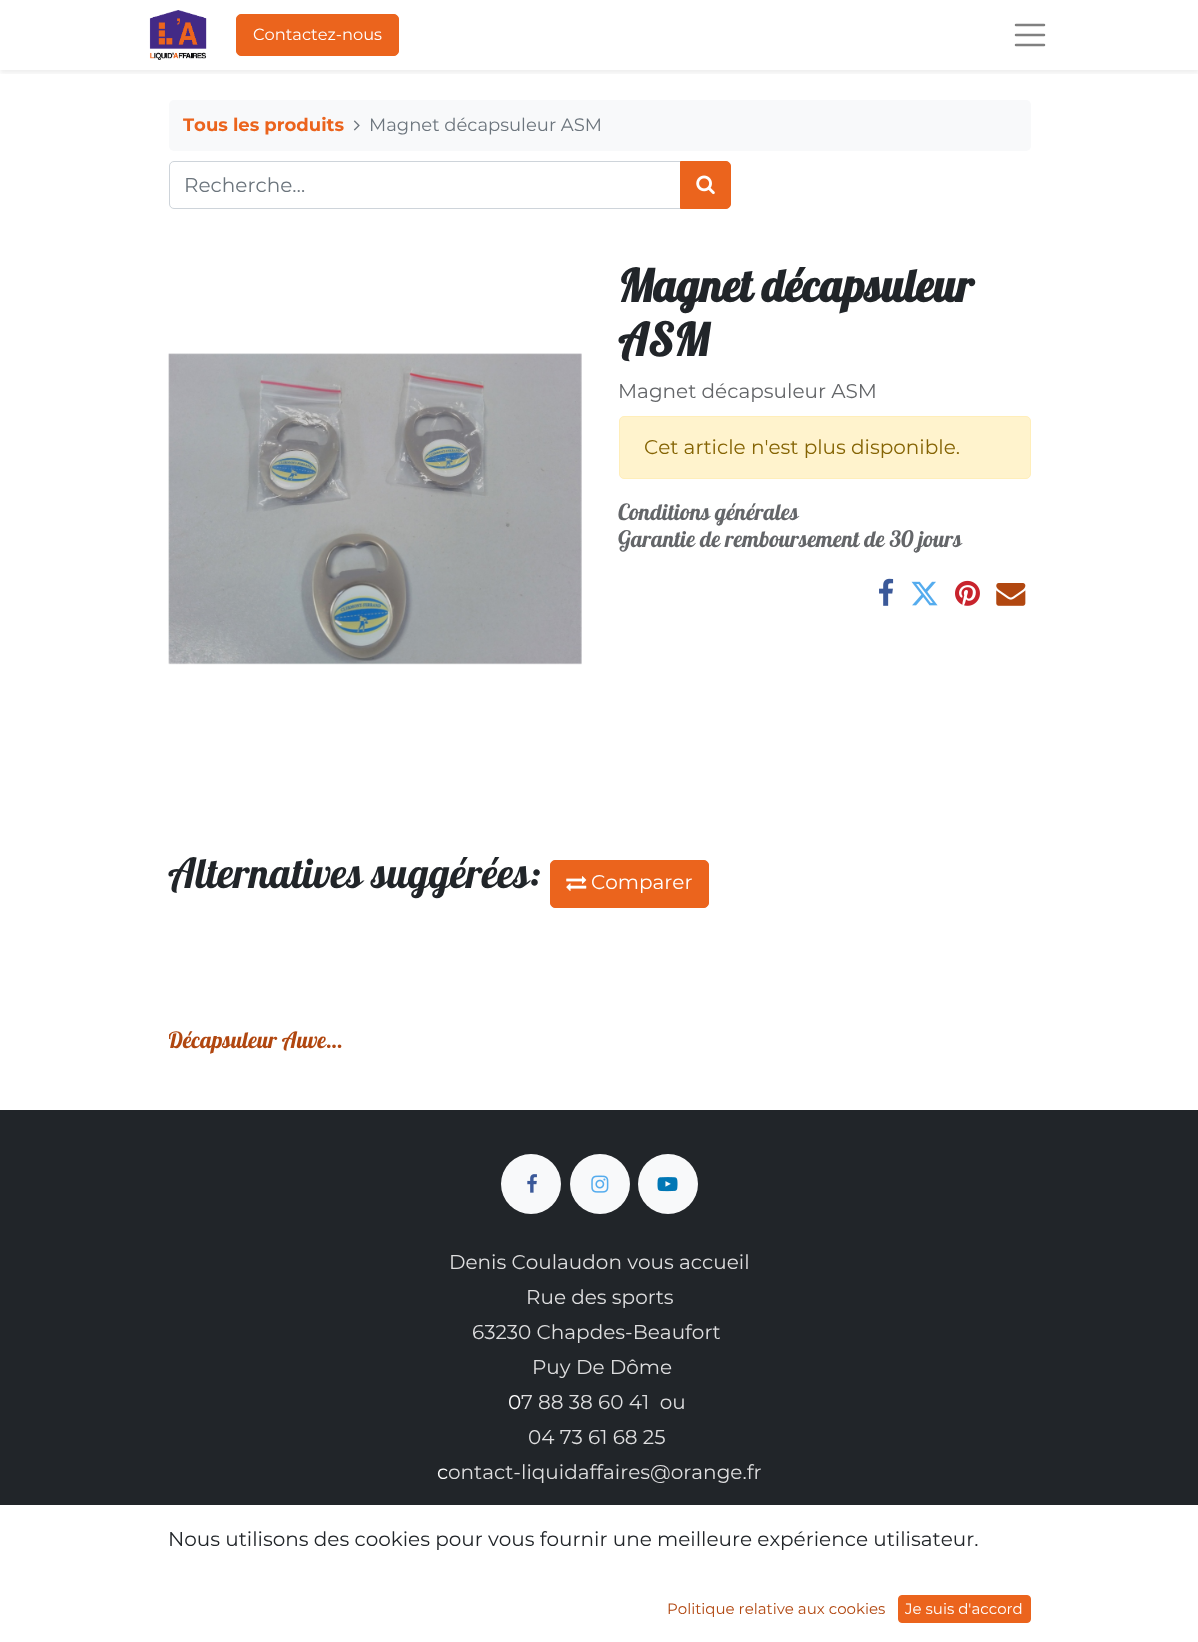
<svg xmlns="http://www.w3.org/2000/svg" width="1198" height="1642">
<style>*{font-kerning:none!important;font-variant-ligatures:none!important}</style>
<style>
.a{font:16.25px Montserrat;fill:#fff}
.b{font:bold 18px Montserrat;fill:#eb641d}
.c{font:18px Montserrat;fill:#6c757d}
.d{font:20px Montserrat;fill:#6c757d}
.e{font:bold 45px Lobster;fill:#212529}
.f{font:20px Montserrat;fill:#646669}
.g{font:20px Montserrat;fill:#856404}
.h{font:22.5px Lobster;fill:#646669}
.i{font:41.4px Lobster;fill:#212529}
.j{font:20px Montserrat;fill:#fff}
.k{font:22.5px Lobster;fill:#b14710}
.l{font:20px Montserrat;fill:#dededf}
.m{font:20px Montserrat;fill:#212529}
.n{font:15px Montserrat;fill:#b14710}
.o{font:15px Montserrat;fill:#fff}
</style>
<defs>
<clipPath id="clip1"><path d="M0 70h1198v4H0z"/></clipPath>
<clipPath id="clip2"><path d="M169 1028h175v26H169z"/></clipPath>
</defs>
<rect width="100%" height="100%" fill="#fff"/>
<g clip-path="url(#clip1)">
<path fill="#00000012" filter="blur(2.5px)" d="M0 3h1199v70H0z"/>
</g>
<image href="1.png" x="149" y="10" width="58" height="50"/>
<rect fill="#eb641d" stroke="#eb641d" x="236.5" y="14.5" width="162" height="41" rx="4.5"/>
<path fill="none" stroke="#808080" stroke-width="2.5" stroke-linecap="round" d="M1016 25h28m-28 10h28m-28 10h28"/>
<rect fill="#f8f9fa" x="169" y="100" width="862" height="51" rx="5"/>
<image href="2.png" x="353" y="120" width="7" height="11"/>
<path fill="none" stroke="#ced4da" d="M174 161.5h506.5v47h-506.5c-2.5 0-4.5-2-4.5-4.5v-38c0-2.5 2-4.5 4.5-4.5z"/>
<path fill="#eb641d" stroke="#eb641d" d="M680.5 161.5h45.5c2.5 0 4.5 2 4.5 4.5v38c0 2.5-2 4.5-4.5 4.5h-45.5z"/>
<image href="3.png" x="696" y="175" width="19" height="20"/>
<image href="4.png" x="168" y="353" width="414" height="312"/>
<rect fill="#fff3cd" stroke="#ffeeba" x="619.5" y="416.5" width="411" height="62" rx="4.5"/>
<image href="5.png" x="879" y="578" width="15" height="28"/>
<image href="6.png" x="911" y="581" width="27" height="25"/>
<image href="7.png" x="955" y="580" width="25" height="26"/>
<image href="8.png" x="996" y="583" width="30" height="23"/>
<rect fill="#eb641d" stroke="#eb641d" x="550.5" y="860.5" width="158" height="47" rx="4.5"/>
<image href="9.png" x="566" y="876" width="21" height="15"/>
<path fill="#212529" d="M0 1110h1198v395H0z"/>
<circle fill="#f8f9fa" cx="531" cy="1184" r="30"/>
<image href="10.png" x="527" y="1174" width="10" height="19"/>
<circle fill="#f8f9fa" cx="600" cy="1184" r="30"/>
<image href="11.png" x="591" y="1175" width="18" height="18"/>
<circle fill="#f8f9fa" cx="668" cy="1184" r="30"/>
<image href="12.png" x="657" y="1177" width="21" height="15"/>
<rect fill="#eb641d" stroke="#eb641d" x="898.5" y="1595.5" width="132" height="27" rx="3.5"/>
<text class="a" x="253" y="40">Contactez-nous</text>
<text class="b" x="183" y="131">Tous les produits</text>
<text class="c" x="369" y="131">Magnet décapsuleur ASM</text>
<text class="d" x="184" y="192">Recherche…</text>
<text class="e" x="618" y="302">Magnet décapsuleur</text>
<text class="e" x="618" y="356">ASM</text>
<text class="f" x="618" y="398">Magnet décapsuleur ASM</text>
<text class="g" x="644" y="454">Cet article n'est plus disponible.</text>
<text class="h" x="618" y="520">Conditions générales</text>
<text class="h" x="618" y="547">Garantie de remboursement de 30 jours</text>
<text class="i" x="168" y="888">Alternatives suggérées:</text>
<text class="j" x="591" y="889">Comparer</text>
<g clip-path="url(#clip2)">
<text class="k" x="168" y="1048">Décapsuleur Auve…</text>
</g>
<text class="l" x="449" y="1269">Denis Coulaudon vous accueil</text>
<text class="l" x="526" y="1304">Rue des sports</text>
<text class="l" x="472" y="1339">63230 Chapdes-Beaufort</text>
<text class="l" x="532" y="1374">Puy De Dôme</text>
<text class="j" x="508" y="1409">0</text>
<text class="l" xml:space="preserve" x="521" y="1409">7 88 38 60 41  ou</text>
<text class="l" x="528" y="1444">04 73 61 68 25</text>
<text class="j" x="437" y="1479">c</text>
<text class="l" x="448" y="1479">ontact-liquidaffaires@orange.fr</text>
<text class="m" x="168" y="1546">Nous utilisons des cookies pour vous fournir une meilleure expérience utilisateur.</text>
<text class="n" x="667" y="1614">Politique relative aux cookies</text>
<text class="o" x="905" y="1614">Je suis d'accord</text>
</svg>
